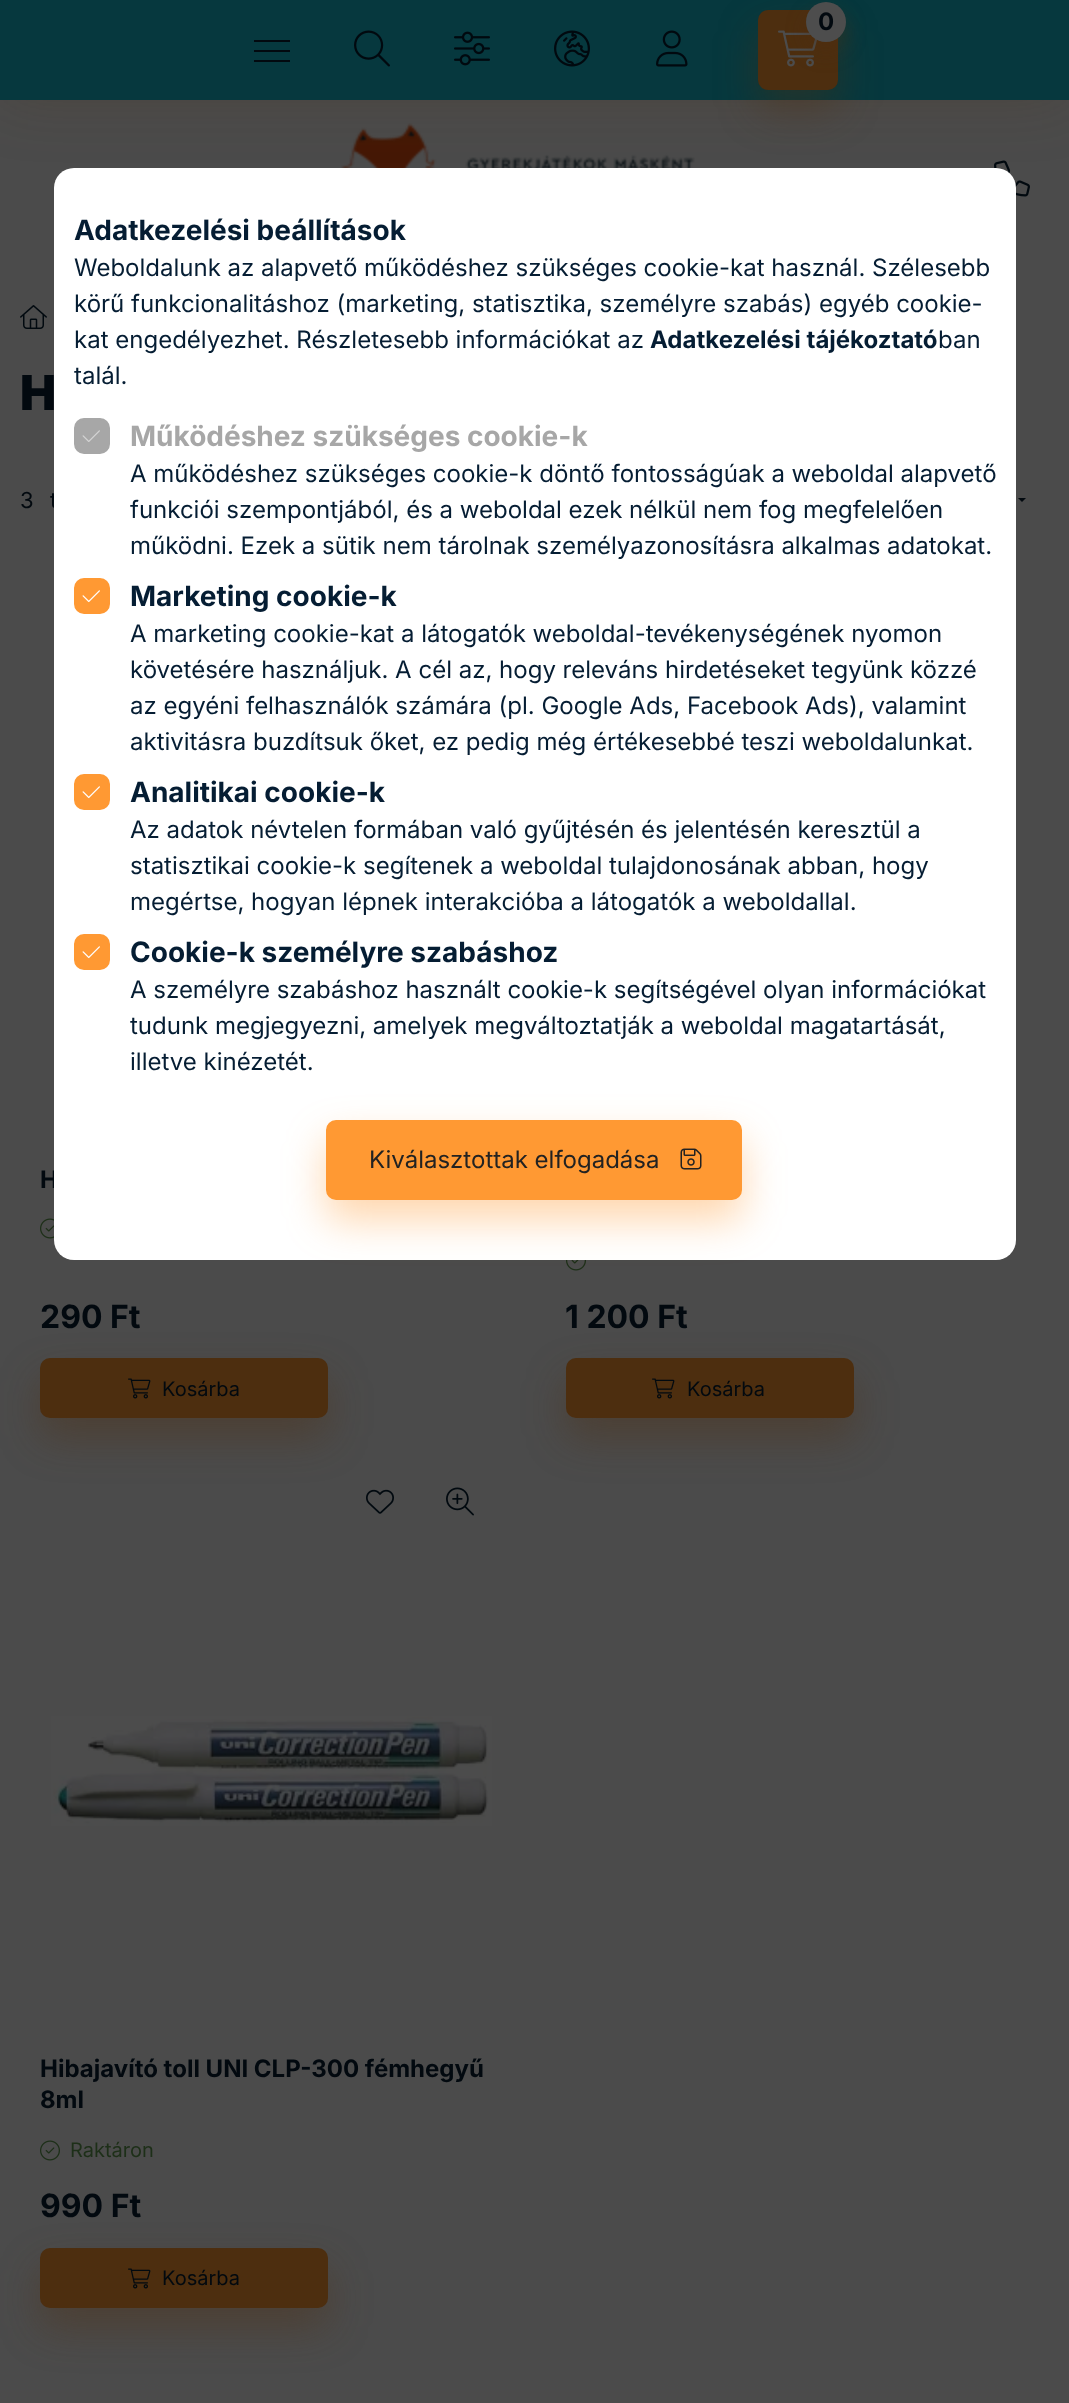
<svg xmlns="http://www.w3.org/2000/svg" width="1069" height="2403">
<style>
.a{font:bold 24px Inter;fill:#02090f}
.b{font:900 48px Inter;fill:#02090f}
.c{font:22px Inter;fill:#02090f}
.d{font:bold 32px Inter;fill:#02090f}
.e{font:20px Inter;fill:#02090f}
.f{font:20px Inter;fill:#1d2f18}
.g{font:bold 28px Inter;fill:#051d33}
.h{font:24px Inter;fill:#051d33}
.i{font:bold 24px Inter;fill:#051d33}
.j{font:bold 28px Inter;fill:#a7a7a7}
.k{font:24px Inter;fill:#222}
</style>
<rect width="100%" height="100%" fill="#4b4b4b"/>
<image href="6.png" x="341" y="123" width="354" height="45"/>
<image href="7.png" x="994" y="160" width="36" height="37"/>
<path fill="#4d2e0f33" filter="blur(30px)" d="M0 0h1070v100H0z"/>
<path fill="#06383e" d="M0 0h1069v100H0z"/>
<rect fill="#4d2e0f66" filter="blur(20px)" x="758" y="30" width="80" height="80" rx="10"/>
<rect fill="#4d2e0f" x="758" y="10" width="80" height="80" rx="10"/>
<image href="1.png" x="778" y="30" width="40" height="37"/>
<rect fill="#4d2e0f66" filter="blur(10px)" x="806" y="12" width="40" height="40" rx="20"/>
<circle fill="#4d4d4d" cx="826" cy="22" r="20"/>
<path fill="#02090f" d="M254 40h36v2H254z"/>
<path fill="#02090f" d="M254 50h36v2H254z"/>
<path fill="#02090f" d="M254 60h36v2H254z"/>
<image href="2.png" x="354" y="30" width="36" height="37"/>
<image href="3.png" x="454" y="31" width="36" height="35"/>
<image href="4.png" x="554" y="30" width="36" height="37"/>
<image href="5.png" x="656" y="30" width="32" height="37"/>
<image href="8.png" x="20" y="305" width="27" height="24"/>
<path fill="#02090f" d="M1018 498h8l-4 4z"/>
<image href="9.png" x="40" y="1218" width="14" height="21"/>
<rect fill="#4d2e0f66" filter="blur(20px)" x="40" y="1378" width="288" height="60" rx="10"/>
<rect fill="#4d2e0f" x="40" y="1358" width="288" height="60" rx="10"/>
<image href="10.png" x="128" y="1378" width="23" height="21"/>
<image href="11.png" x="566" y="1260" width="20" height="11"/>
<rect fill="#4d2e0f66" filter="blur(20px)" x="566" y="1378" width="288" height="60" rx="10"/>
<rect fill="#4d2e0f" x="566" y="1358" width="288" height="60" rx="10"/>
<image href="10.png" x="652" y="1378" width="23" height="21"/>
<image href="12.png" x="366" y="1489" width="28" height="25"/>
<image href="13.png" x="446" y="1487" width="28" height="29"/>
<image href="14.png" x="51" y="1716" width="441" height="110"/>
<image href="15.png" x="40" y="2140" width="20" height="21"/>
<rect fill="#4d2e0f66" filter="blur(20px)" x="40" y="2268" width="288" height="60" rx="10"/>
<rect fill="#4d2e0f" x="40" y="2248" width="288" height="60" rx="10"/>
<image href="10.png" x="128" y="2268" width="23" height="21"/>
<text class="a" x="818" y="30">0</text>
<text class="b" x="20" y="410">H</text>
<text class="c" x="20" y="508">3</text>
<text class="c" x="50" y="508">t</text>
<text class="a" x="40" y="1188">H</text>
<text class="d" x="40" y="1328">290 Ft</text>
<text class="e" x="162" y="1396">Kosárba</text>
<text class="d" x="565" y="1328">1 200 Ft</text>
<text class="e" x="687" y="1396">Kosárba</text>
<text class="a" x="40" y="2077">Hibajavító toll UNI CLP-300 fémhegyű</text>
<text class="a" x="40" y="2108">8ml</text>
<text class="f" x="70" y="2157">Raktáron</text>
<text class="d" x="40" y="2217">990 Ft</text>
<text class="e" x="162" y="2285">Kosárba</text>
<rect fill="#fff" x="54" y="168" width="962" height="1092" rx="20"/>
<text class="g" x="74" y="240">Adatkezelési beállítások</text>
<text class="h" x="74" y="276">Weboldalunk az alapvető működéshez szükséges cookie-kat használ. Szélesebb</text>
<text class="h" x="74" y="312">körű funkcionalitáshoz (marketing, statisztika, személyre szabás) egyéb cookie-</text>
<text class="h" x="74" y="348">kat engedélyezhet. Részletesebb információkat az</text>
<text class="i" x="650" y="348">Adatkezelési tájékoztató</text>
<text class="h" x="938" y="348">ban</text>
<text class="h" x="74" y="384">talál.</text>
<rect fill="#a7a7a7" stroke="#a7a7a7" stroke-width="2" x="75" y="419" width="34" height="34" rx="9"/>
<image href="16.png" x="82" y="430" width="18" height="12"/>
<text class="j" x="130" y="446">Működéshez szükséges cookie-k</text>
<text class="h" x="130" y="482">A működéshez szükséges cookie-k döntő fontosságúak a weboldal alapvető</text>
<text class="h" x="130" y="518">funkciói szempontjából, és a weboldal ezek nélkül nem fog megfelelően</text>
<text class="h" x="130" y="554">működni. Ezek a sütik nem tárolnak személyazonosításra alkalmas adatokat.</text>
<rect fill="#f93" stroke="#f93" stroke-width="2" x="75" y="579" width="34" height="34" rx="9"/>
<image href="17.png" x="82" y="590" width="18" height="13"/>
<text class="g" x="130" y="606">Marketing cookie-k</text>
<text class="h" x="130" y="642">A marketing cookie-kat a látogatók weboldal-tevékenységének nyomon</text>
<text class="h" x="130" y="678">követésére használjuk. A cél az, hogy releváns hirdetéseket tegyünk közzé</text>
<text class="h" x="130" y="714">az egyéni felhasználók számára (pl. Google Ads, Facebook Ads), valamint</text>
<text class="h" x="130" y="750">aktivitásra buzdítsuk őket, ez pedig még értékesebbé teszi weboldalunkat.</text>
<rect fill="#f93" stroke="#f93" stroke-width="2" x="75" y="775" width="34" height="34" rx="9"/>
<image href="17.png" x="82" y="786" width="18" height="13"/>
<text class="g" x="130" y="802">Analitikai cookie-k</text>
<text class="h" x="130" y="838">Az adatok névtelen formában való gyűjtésén és jelentésén keresztül a</text>
<text class="h" x="130" y="874">statisztikai cookie-k segítenek a weboldal tulajdonosának abban, hogy</text>
<text class="h" x="130" y="910">megértse, hogyan lépnek interakcióba a látogatók a weboldallal.</text>
<rect fill="#f93" stroke="#f93" stroke-width="2" x="75" y="935" width="34" height="34" rx="9"/>
<image href="17.png" x="82" y="946" width="18" height="13"/>
<text class="g" x="130" y="962">Cookie-k személyre szabáshoz</text>
<text class="h" x="130" y="998">A személyre szabáshoz használt cookie-k segítségével olyan információkat</text>
<text class="h" x="130" y="1034">tudunk megjegyezni, amelyek megváltoztatják a weboldal magatartását,</text>
<text class="h" x="130" y="1070">illetve kinézetét.</text>
<rect fill="#ff993366" filter="blur(20px)" x="326" y="1140" width="416" height="80" rx="10"/>
<rect fill="#f93" stroke="#f93" stroke-width="2" x="327" y="1121" width="414" height="78" rx="9"/>
<text class="k" x="369" y="1168">Kiválasztottak elfogadása</text>
<image href="18.png" x="680" y="1148" width="22" height="22"/>
</svg>
